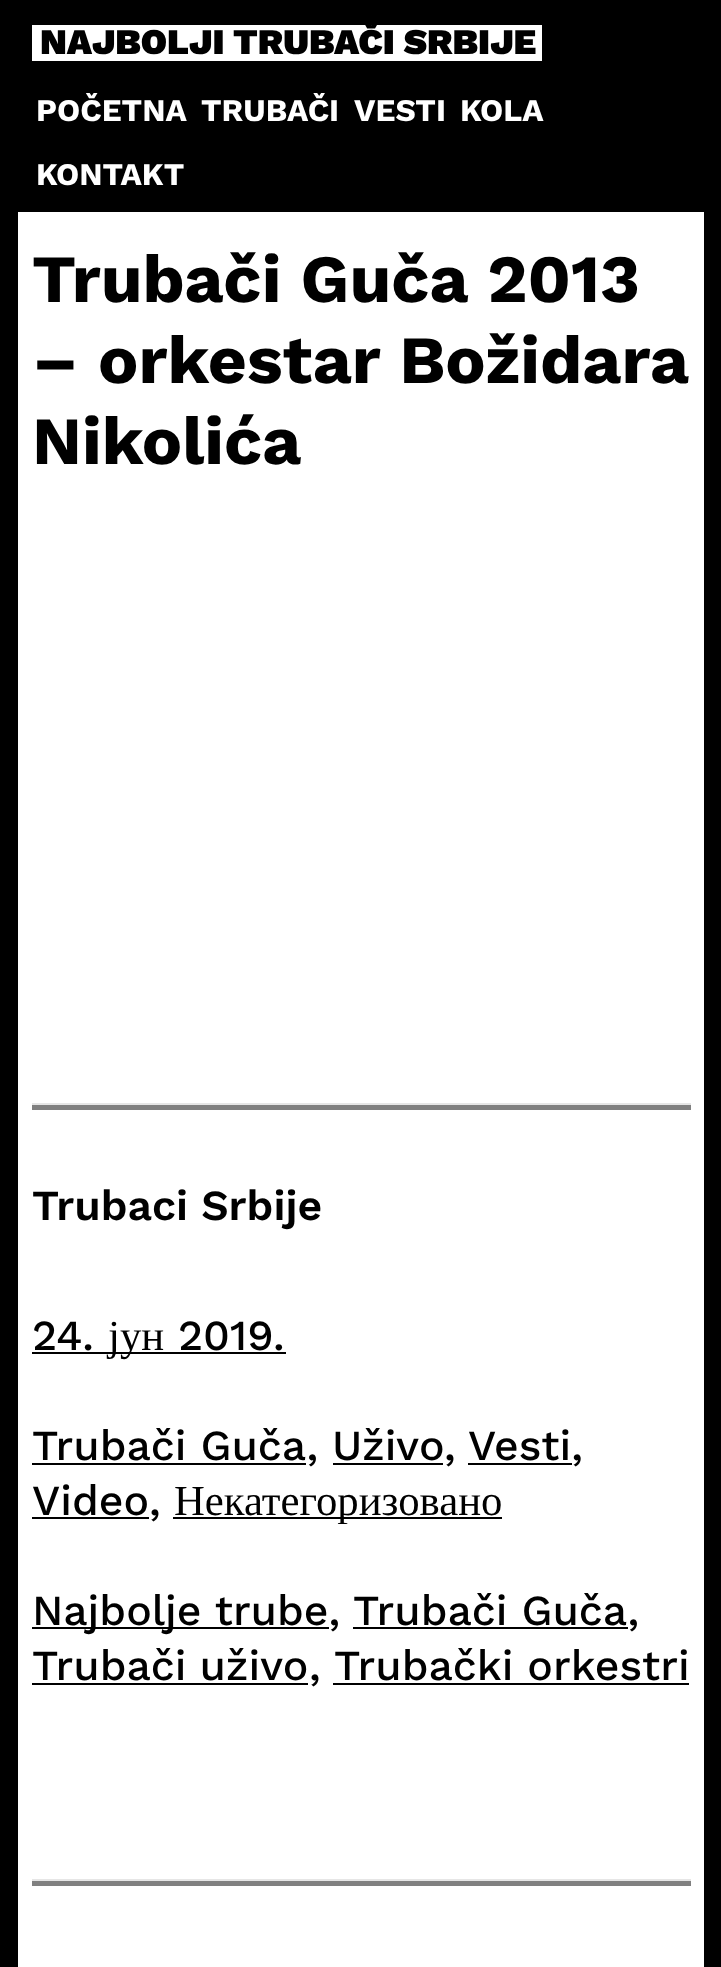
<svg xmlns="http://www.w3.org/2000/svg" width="721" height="1967">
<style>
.a{font:900 36.1px Work Sans;fill:#000}
.b{font:bold 31.5px Work Sans;fill:#fff}
.c{font:bold 67.5px Work Sans;fill:#000}
.d{font:600 42.75px Work Sans;fill:#000}
.e{font:500 42.75px Work Sans;fill:#000}
.f{font:42.75px Liberation Serif;fill:#000}
</style>
<rect width="100%" height="100%" fill="#fff"/>
<path fill="none" stroke="#000" stroke-width="18" d="M9 9h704v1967H9z"/>
<path fill="#000" d="M18 18h686v194H18z"/>
<path fill="#fff" d="M32 25h510v36H32z"/>
<path fill="#e6e6e6" d="M32 1103h659v2H32z"/>
<path fill="#808080" d="M32 1105h659v5H32z"/>
<path fill="#000" d="M32 1352h254v2H32z"/>
<path fill="#000" d="M32 1463h274v2H32z"/>
<path fill="#000" d="M468 1463h104v2H468z"/>
<path fill="#000" d="M333 1463h110v2H333z"/>
<path fill="#000" d="M32 1517h117v2H32z"/>
<path fill="#000" d="M173 1517h329v2H173z"/>
<path fill="#000" d="M32 1627h297v2H32z"/>
<path fill="#000" d="M353 1627h275v2H353z"/>
<path fill="#000" d="M32 1683h276v2H32z"/>
<path fill="#000" d="M333 1683h356v2H333z"/>
<path fill="#e6e6e6" d="M32 1879h659v2H32z"/>
<path fill="#808080" d="M32 1881h659v5H32z"/>
<text class="a" x="40" y="54">NAJBOLJI TRUBAČI SRBIJE</text>
<text class="b" x="36" y="121">POČETNA</text>
<text class="b" x="201" y="121">TRUBAČI</text>
<text class="b" x="354" y="121">VESTI</text>
<text class="b" x="460" y="121">KOLA</text>
<text class="b" x="36" y="185">KONTAKT</text>
<text class="c" x="32" y="302">Trubači Guča 2013</text>
<text class="c" x="32" y="383">– orkestar Božidara</text>
<text class="c" x="32" y="464">Nikolića</text>
<text class="d" x="32" y="1220">Trubaci Srbije</text>
<text class="e" x="32" y="1350">24.</text>
<text class="f" x="108" y="1350">јун</text>
<text class="e" x="178" y="1350">2019.</text>
<text class="e" x="32" y="1460">Trubači Guča, Uživo</text>
<text class="e" x="444" y="1460">,</text>
<text class="e" x="468" y="1460">Vesti,</text>
<text class="e" x="32" y="1515">Video</text>
<text class="e" x="149" y="1515">,</text>
<text class="f" x="174" y="1515">Некатегоризовано</text>
<text class="e" x="32" y="1625">Najbolje trube,</text>
<text class="e" x="353" y="1625">Trubači Guča,</text>
<text class="e" x="32" y="1680" word-spacing="-1">Trubači uživo</text>
<text class="e" x="309" y="1680">,</text>
<text class="e" x="334" y="1680">Trubački orkestri</text>
</svg>
